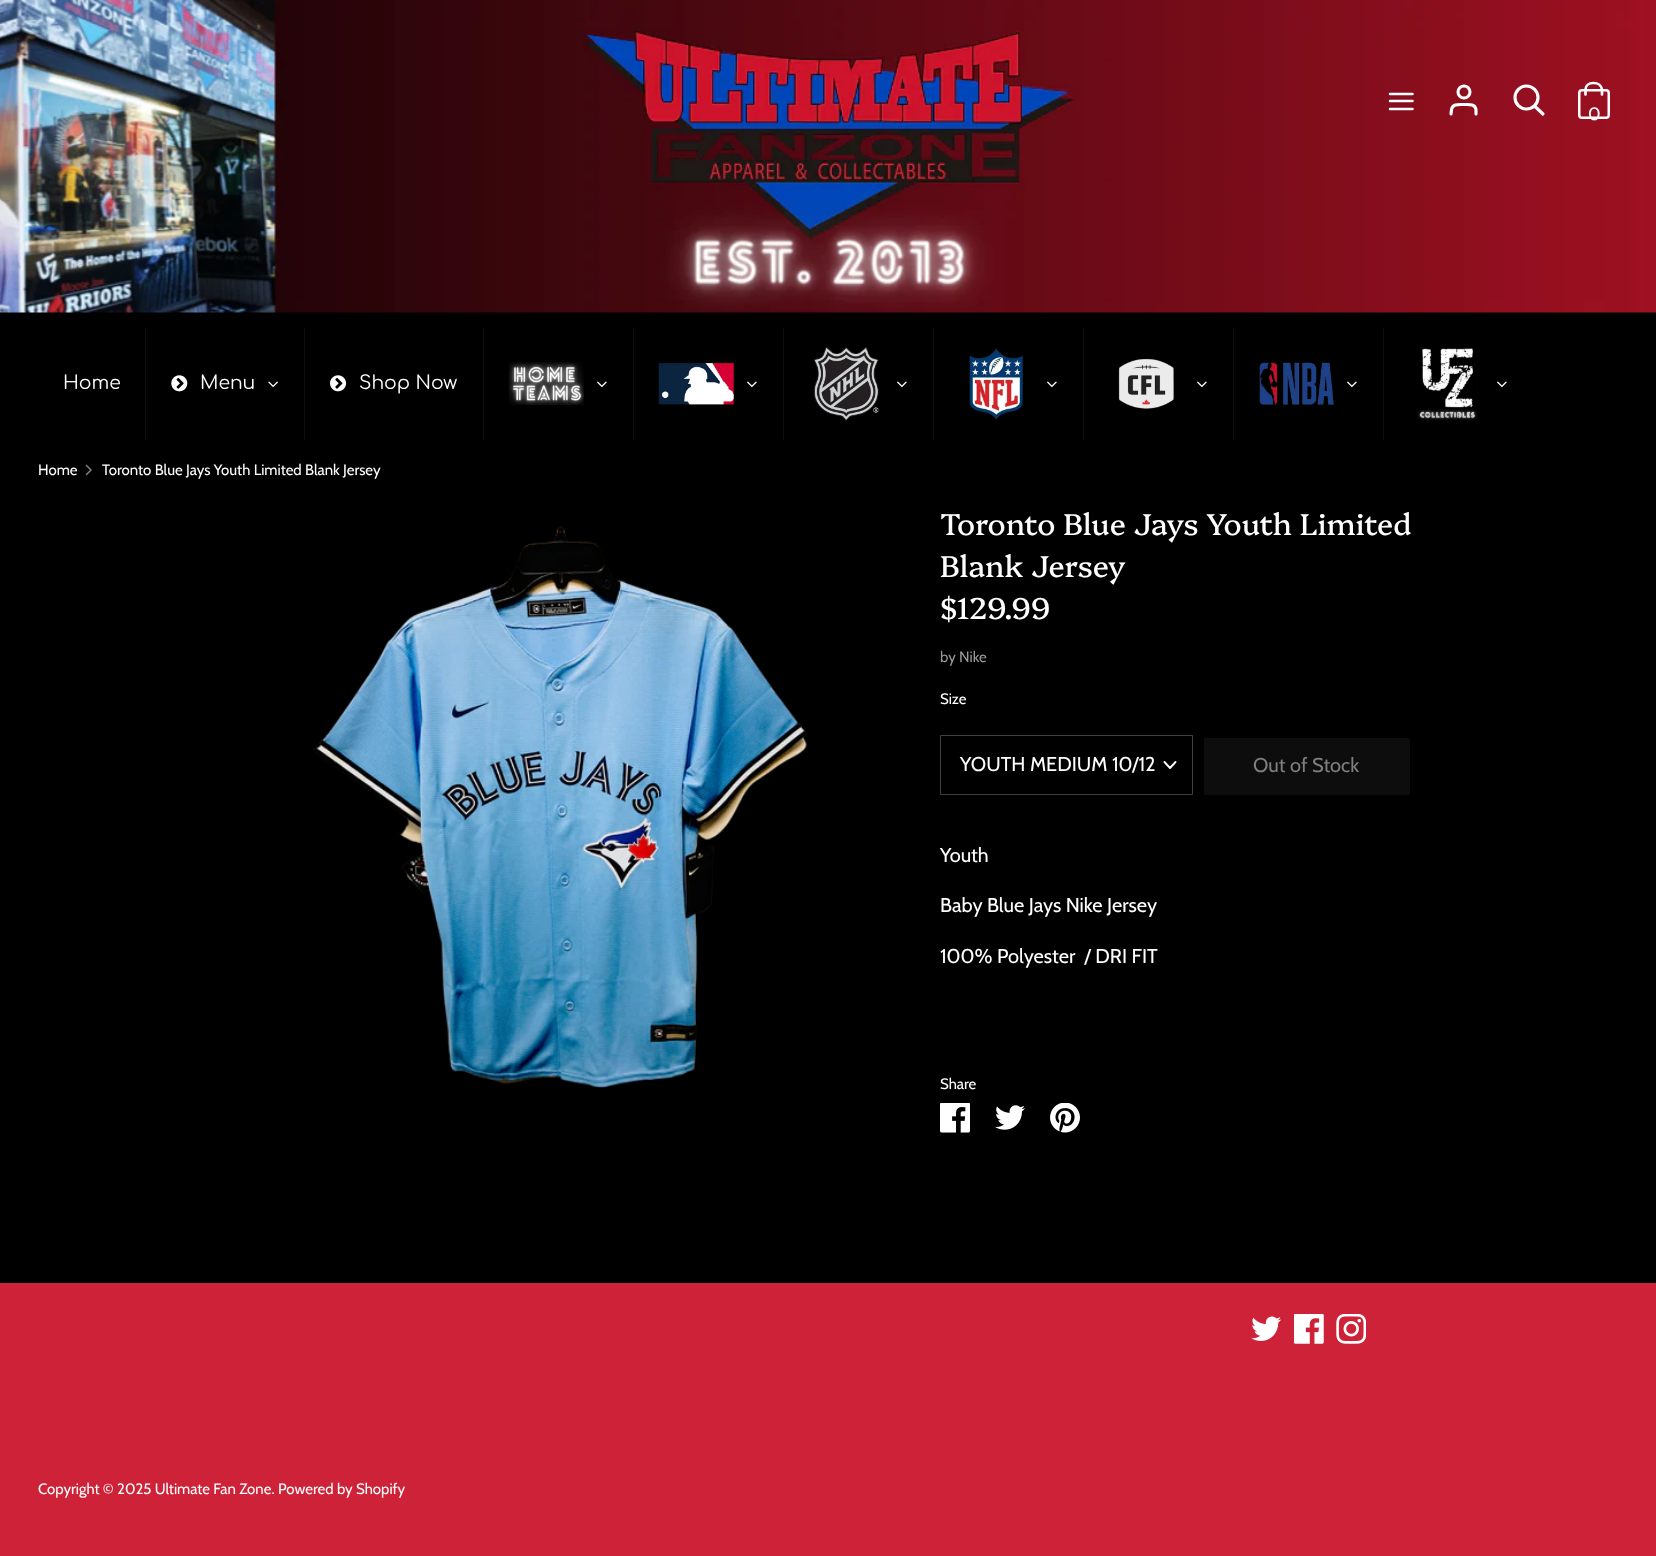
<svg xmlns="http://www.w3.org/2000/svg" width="1656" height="1556">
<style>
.a{font:18px Cabin;fill:#fff}
.b{font:18.75px Comfortaa;fill:#fff}
.c{font:15px Cabin;fill:#fff}
.d{font:30px Platypi;fill:#fff}
.e{font:15px Cabin;fill:#999}
.f{font:20px Cabin;fill:#fff}
.g{font:20px Cabin;fill:#808080}
</style>
<rect width="100%" height="100%" fill="#000"/>
<image href="1.png" x="0" y="0" width="1656" height="313"/>
<path fill="none" stroke="#fff" stroke-width="2.5" stroke-linecap="round" d="M1390 101h22.5m-22.5-7h22.5m-22.5 15h22.5"/>
<path fill="none" stroke="#fff" stroke-width="3.1" stroke-linecap="round" d="M1476 114v-4.5c-1-6-7.5-5-12-5c-5 0-11.5-1-12.5 5l-.5 4.5"/>
<circle fill="none" stroke="#fff" stroke-width="3.1" cx="1464" cy="92" r="6"/>
<circle fill="none" stroke="#fff" stroke-width="3.1" cx="1526.5" cy="97.5" r="11.5"/>
<path fill="none" stroke="#fff" stroke-width="3.1" stroke-linecap="round" d="M1543 114l-8.5-8"/>
<rect fill="none" stroke="#fff" stroke-width="2.5" x="1579.25" y="90.25" width="29.5" height="27.5" rx="2.75"/>
<path fill="none" stroke="#fff" stroke-width="2.7" stroke-linecap="round" d="M1585.5 94.5v-5c0-4 3.5-6.5 8-6.5c4.5 0 8 2.5 8.5 6.5v5"/>
<path fill="#0f0f0f" d="M145 328h1v112H145z"/>
<image href="2.png" x="171" y="375" width="17" height="17"/>
<image href="3.png" x="268" y="381" width="10" height="7"/>
<path fill="#0f0f0f" d="M304 328h1v112H304z"/>
<image href="4.png" x="330" y="375" width="17" height="17"/>
<path fill="#0f0f0f" d="M483 328h1v112H483z"/>
<image href="5.png" x="508" y="362" width="76" height="43"/>
<image href="6.png" x="597" y="381" width="10" height="7"/>
<path fill="#0f0f0f" d="M633 328h1v112H633z"/>
<image href="7.png" x="658" y="362" width="76" height="43"/>
<image href="6.png" x="747" y="381" width="10" height="7"/>
<path fill="#0f0f0f" d="M783 328h1v112H783z"/>
<image href="8.png" x="813" y="346" width="66" height="75"/>
<image href="6.png" x="897" y="381" width="10" height="7"/>
<path fill="#0f0f0f" d="M933 328h1v112H933z"/>
<image href="9.png" x="969" y="348" width="54" height="72"/>
<image href="6.png" x="1047" y="381" width="10" height="7"/>
<path fill="#0f0f0f" d="M1083 328h1v112H1083z"/>
<image href="10.png" x="1118" y="358" width="56" height="51"/>
<image href="6.png" x="1197" y="381" width="10" height="7"/>
<path fill="#0f0f0f" d="M1233 328h1v112H1233z"/>
<image href="11.png" x="1259" y="362" width="75" height="43"/>
<image href="6.png" x="1347" y="381" width="10" height="7"/>
<path fill="#0f0f0f" d="M1383 328h1v112H1383z"/>
<image href="12.png" x="1417" y="348" width="61" height="73"/>
<image href="6.png" x="1497" y="381" width="10" height="7"/>
<path fill="none" stroke="#808080" stroke-width="1.5" stroke-linecap="round" d="M86.5 474.5l4.5-4.5l-4.5-4.5"/>
<image href="13.png" x="313" y="524" width="494" height="564"/>
<path fill="none" stroke="#fff" stroke-width="1.9" stroke-linecap="round" stroke-linejoin="round" d="M1164.5 762l5.5 6l5.5-6"/>
<path fill="none" stroke="#404040" d="M940.5 735.5h252v59H940.5z"/>
<path fill="none" stroke="#0d0d0d" d="M1204.5 738.5h205v56H1204.5z"/>
<path fill="#0d0d0d" d="M1205 739h204v55H1205z"/>
<image href="14.png" x="940" y="1103" width="30" height="30"/>
<image href="15.png" x="995" y="1105" width="30" height="25"/>
<image href="16.png" x="1050" y="1103" width="30" height="30"/>
<path fill="#cd2238" d="M0 1283h1656v273H0z"/>
<image href="17.png" x="1251" y="1316" width="30" height="25"/>
<image href="18.png" x="1294" y="1314" width="30" height="30"/>
<image href="19.png" x="1336" y="1314" width="30" height="30"/>
<text class="a" x="1588" y="120">0</text>
<text class="b" x="63" y="389">Home</text>
<text class="b" x="200" y="389">Menu</text>
<text class="b" x="359" y="389">Shop Now</text>
<text class="c" x="38" y="475">Home</text>
<text class="c" x="102" y="475">Toronto Blue Jays Youth Limited Blank Jersey</text>
<text class="d" x="940" y="535">Toronto Blue Jays Youth Limited</text>
<text class="d" x="940" y="577">Blank Jersey</text>
<text class="d" x="940" y="619">$129.99</text>
<text class="e" x="940" y="662">by Nike</text>
<text class="c" x="940" y="704">Size</text>
<text class="f" x="960" y="771">YOUTH MEDIUM 10/12</text>
<text class="g" x="1253" y="772">Out of Stock</text>
<text class="f" x="940" y="862">Youth</text>
<text class="f" x="940" y="912">Baby Blue Jays Nike Jersey</text>
<text class="f" xml:space="preserve" x="940" y="963">100% Polyester  / DRI FIT</text>
<text class="c" x="940" y="1089">Share</text>
<text class="c" x="38" y="1494">Copyright © 2025 Ultimate Fan Zone. Powered by Shopify</text>
</svg>
